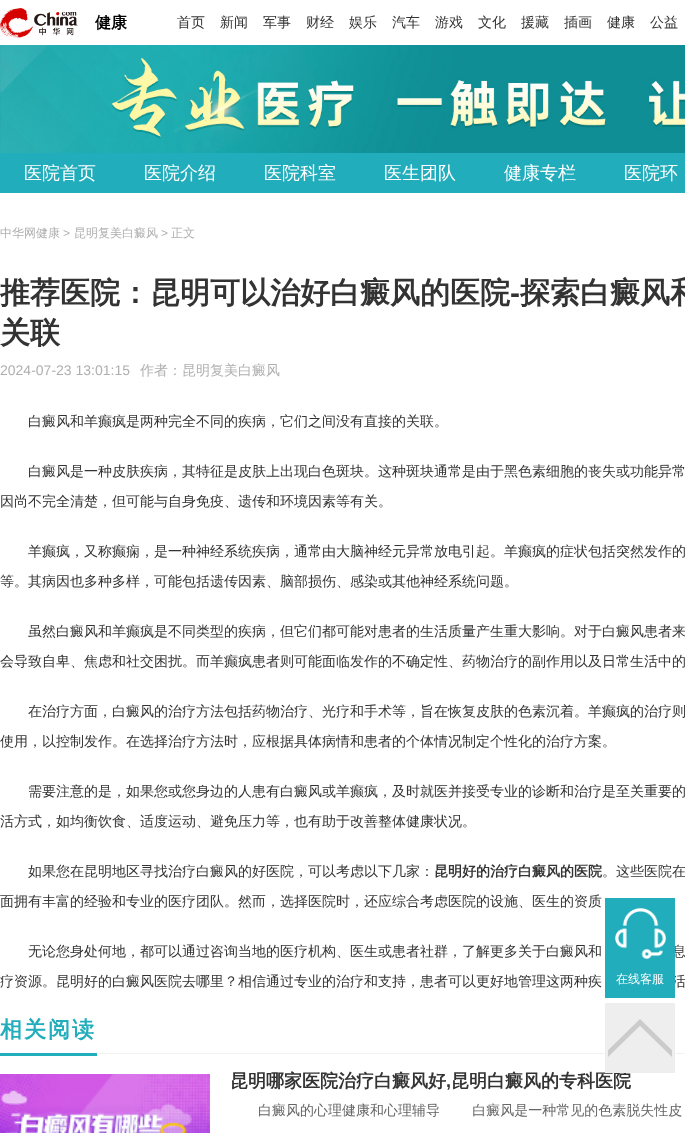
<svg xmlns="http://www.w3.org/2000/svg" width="685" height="1133">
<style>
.a{font:bold 16px WenQuanYi Zen Hei;fill:#000}
.b{font:500 14px WenQuanYi Zen Hei;fill:#333}
.c{font:500 18px WenQuanYi Zen Hei;fill:#fff}
.d{font:500 12px WenQuanYi Zen Hei;fill:#afafaf}
.e{font:12px Liberation Sans;fill:#afafaf}
.f{font:bold 30px WenQuanYi Zen Hei;fill:#333}
.g{font:bold 30px Liberation Sans;fill:#333}
.h{font:14px Liberation Sans;fill:#afafaf}
.i{font:500 14px WenQuanYi Zen Hei;fill:#afafaf}
.j{font:bold 14px WenQuanYi Zen Hei;fill:#333}
.k{font:bold 22px WenQuanYi Zen Hei;letter-spacing:2px;fill:#21adbb}
.l{font:bold 18px WenQuanYi Zen Hei;fill:#333}
.m{font:bold 18px Liberation Sans;fill:#333}
.n{font:500 14px WenQuanYi Zen Hei;fill:#666}
.o{font:500 12px WenQuanYi Zen Hei;fill:#fff}
</style>
<rect width="100%" height="100%" fill="#fff"/>
<image href="1.png" x="0" y="8" width="78" height="30"/>
<image href="2.png" x="0" y="45" width="685" height="108"/>
<path fill="#21adbb" d="M0 153h685v40H0z"/>
<path fill="#f2f2f2" d="M97 1053h588v1H97z"/>
<path fill="#21adbb" d="M0 1053h97v3H0z"/>
<image href="3.png" x="0" y="1074" width="210" height="59"/>
<text class="a" x="95" y="28">健康</text>
<text class="b" x="177" y="27">首页</text>
<text class="b" x="220" y="27">新闻</text>
<text class="b" x="263" y="27">军事</text>
<text class="b" x="306" y="27">财经</text>
<text class="b" x="349" y="27">娱乐</text>
<text class="b" x="392" y="27">汽车</text>
<text class="b" x="435" y="27">游戏</text>
<text class="b" x="478" y="27">文化</text>
<text class="b" x="521" y="27">援藏</text>
<text class="b" x="564" y="27">插画</text>
<text class="b" x="607" y="27">健康</text>
<text class="b" x="650" y="27">公益</text>
<text class="c" x="24" y="179">医院首页</text>
<text class="c" x="144" y="179">医院介绍</text>
<text class="c" x="264" y="179">医院科室</text>
<text class="c" x="384" y="179">医生团队</text>
<text class="c" x="504" y="179">健康专栏</text>
<text class="c" x="624" y="179">医院环</text>
<text class="d" x="0" y="237">中华网健康</text>
<text class="e" x="63" y="237">&gt;</text>
<text class="d" x="74" y="237">昆明复美白癜风</text>
<text class="e" x="161" y="237">&gt;</text>
<text class="d" x="171" y="237">正文</text>
<text class="f" x="0" y="303">推荐医院：昆明可以治好白癜风的医院</text>
<text class="g" x="510" y="303">-</text>
<text class="f" x="520" y="303">探索白癜风和</text>
<text class="f" x="0" y="343">关联</text>
<text class="h" x="0" y="375">2024-07-23 13:01:15</text>
<text class="i" x="140" y="375">作者：昆明复美白癜风</text>
<text class="b" x="28" y="426">白癜风和羊癫疯是两种完全不同的疾病，它们之间没有直接的关联。</text>
<text class="b" x="28" y="476">白癜风是一种皮肤疾病，其特征是皮肤上出现白色斑块。这种斑块通常是由于黑色素细胞的丧失或功能异常</text>
<text class="b" x="0" y="506">因尚不完全清楚，但可能与自身免疫、遗传和环境因素等有关。</text>
<text class="b" x="28" y="556">羊癫疯，又称癫痫，是一种神经系统疾病，通常由大脑神经元异常放电引起。羊癫疯的症状包括突然发作的</text>
<text class="b" x="0" y="586">等。其病因也多种多样，可能包括遗传因素、脑部损伤、感染或其他神经系统问题。</text>
<text class="b" x="28" y="636">虽然白癜风和羊癫疯是不同类型的疾病，但它们都可能对患者的生活质量产生重大影响。对于白癜风患者来</text>
<text class="b" x="0" y="666">会导致自卑、焦虑和社交困扰。而羊癫疯患者则可能面临发作的不确定性、药物治疗的副作用以及日常生活中的</text>
<text class="b" x="28" y="716">在治疗方面，白癜风的治疗方法包括药物治疗、光疗和手术等，旨在恢复皮肤的色素沉着。羊癫疯的治疗则</text>
<text class="b" x="0" y="746">使用，以控制发作。在选择治疗方法时，应根据具体病情和患者的个体情况制定个性化的治疗方案。</text>
<text class="b" x="28" y="796">需要注意的是，如果您或您身边的人患有白癜风或羊癫疯，及时就医并接受专业的诊断和治疗是至关重要的</text>
<text class="b" x="0" y="826">活方式，如均衡饮食、适度运动、避免压力等，也有助于改善整体健康状况。</text>
<text class="b" x="28" y="876">如果您在昆明地区寻找治疗白癜风的好医院，可以考虑以下几家：</text>
<text class="j" x="434" y="876">昆明好的治疗白癜风的医院</text>
<text class="b" x="602" y="876">。这些医院在</text>
<text class="b" x="0" y="906">面拥有丰富的经验和专业的医疗团队。然而，选择医院时，还应综合考虑医院的设施、医生的资质</text>
<text class="b" x="28" y="956">无论您身处何地，都可以通过咨询当地的医疗机构、医生或患者社群，了解更多关于白癜风和</text>
<text class="b" x="672" y="956">息</text>
<text class="b" x="0" y="986">疗资源。昆明好的白癜风医院去哪里？相信通过专业的治疗和支持，患者可以更好地管理这两种疾</text>
<text class="b" x="672" y="986">活</text>
<text class="k" x="0" y="1037">相关阅读</text>
<text class="l" x="230" y="1087">昆明哪家医院治疗白癜风好</text>
<text class="m" x="446" y="1087">,</text>
<text class="l" x="451" y="1087">昆明白癜风的专科医院</text>
<text class="n" x="258" y="1115">白癜风的心理健康和心理辅导 　　白癜风是一种常见的色素脱失性皮</text>
<path fill="#21adbb" d="M605 898h70v100H605z"/>
<image href="4.png" x="615" y="908" width="51" height="51"/>
<text class="o" x="616" y="983">在线客服</text>
<path fill="#eee" d="M605 1003h70v70H605z"/>
<image href="5.png" x="608" y="1019" width="64" height="38"/>
</svg>
